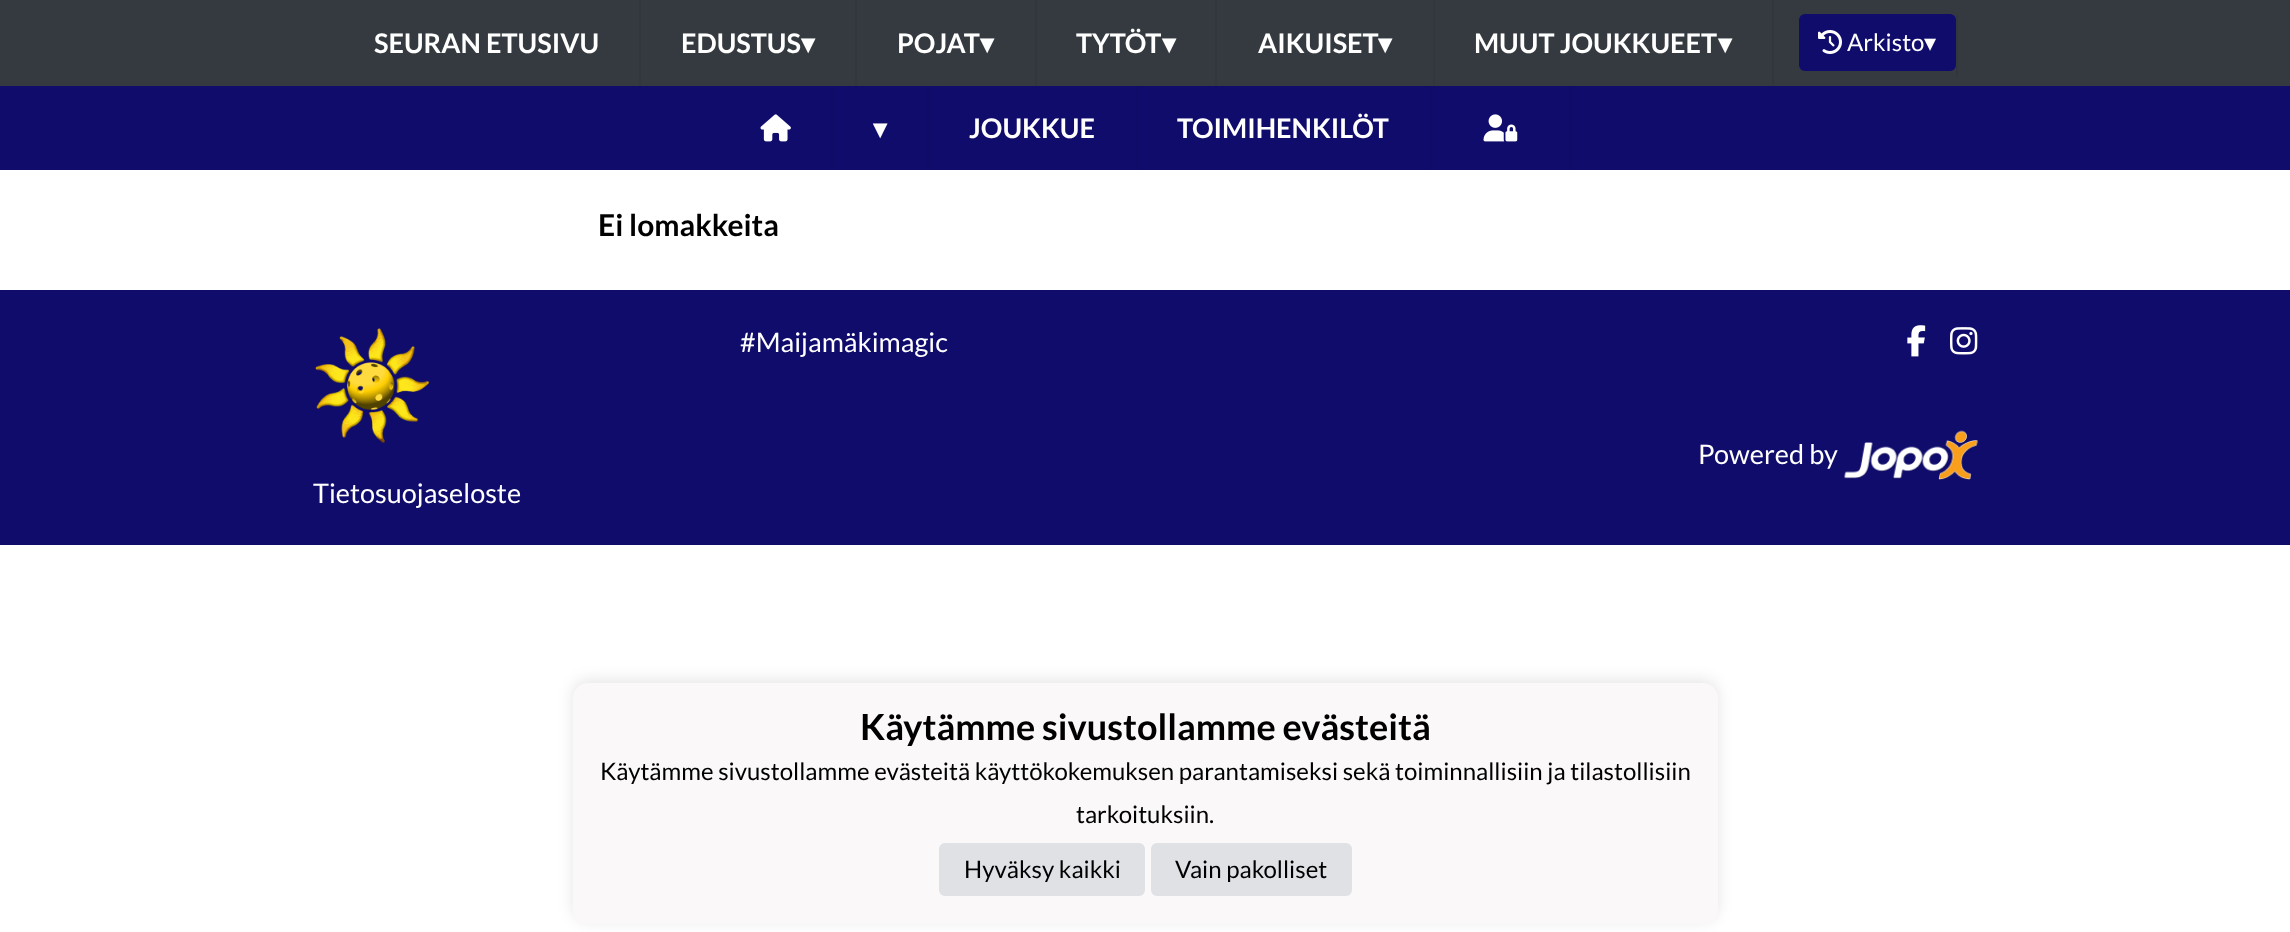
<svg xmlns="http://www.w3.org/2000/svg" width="2290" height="932">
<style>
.a{font:bold 27px Lato;fill:#fff}
.b{font:bold 27px DejaVu Sans;fill:#fff}
.c{font:24px Lato;fill:#fff}
.d{font:24px DejaVu Sans;fill:#fff}
.e{font:bold 30px Lato;fill:#000}
.f{font:27px Lato;fill:#fff}
.g{font:bold 36px Lato;fill:#000}
.h{font:24px Lato;fill:#000}
</style>
<rect width="100%" height="100%" fill="#fff"/>
<path fill="#343a40" d="M0 0h2290v86H0z"/>
<path fill="#31373d" d="M639 0h2v86H639z"/>
<path fill="#31373d" d="M855 0h2v86H855z"/>
<path fill="#31373d" d="M1035 0h2v86H1035z"/>
<path fill="#31373d" d="M1215 0h2v86H1215z"/>
<path fill="#31373d" d="M1433 0h2v86H1433z"/>
<path fill="#31373d" d="M1772 0h2v86H1772z"/>
<path fill="#31373d" d="M1956 14h2v64H1956z"/>
<rect fill="#100c6c" x="1799" y="14" width="157" height="57" rx="6"/>
<image href="1.png" x="1818" y="30" width="24" height="24"/>
<path fill="#100c6c" d="M0 86h2290v84H0z"/>
<path fill="#0f0b67" d="M831 86h2v84H831z"/>
<image href="2.png" x="760" y="114" width="31" height="28"/>
<path fill="#0f0b67" d="M927 86h2v84H927z"/>
<path fill="#0f0b67" d="M1136 86h2v84H1136z"/>
<path fill="#0f0b67" d="M1430 86h2v84H1430z"/>
<path fill="#0f0b67" d="M1569 86h2v84H1569z"/>
<image href="3.png" x="1483" y="114" width="35" height="28"/>
<path fill="#100c6c" d="M0 290h2290v255H0z"/>
<image href="4.png" x="1907" y="325" width="19" height="32"/>
<image href="5.png" x="1950" y="327" width="28" height="28"/>
<image href="6.png" x="1844" y="430" width="134" height="50"/>
<image href="7.png" x="315" y="328" width="115" height="115"/>
<rect fill="#0000001a" filter="blur(7.5px)" x="573" y="680" width="1145" height="241" rx="15"/>
<rect fill="#faf8f8" x="573" y="683" width="1145" height="241" rx="15"/>
<rect fill="#dfe1e5" x="939" y="843" width="206" height="53" rx="6"/>
<rect fill="#dfe1e5" x="1151" y="843" width="201" height="53" rx="6"/>
<text class="a" x="374" y="53">SEURAN ETUSIVU</text>
<text class="a" x="681" y="53">EDUSTUS</text>
<text class="b" x="801" y="53">▾</text>
<text class="a" x="897" y="53">POJAT</text>
<text class="b" x="980" y="53">▾</text>
<text class="a" x="1076" y="53">TYTÖT</text>
<text class="b" x="1162" y="53">▾</text>
<text class="a" x="1258" y="53">AIKUISET</text>
<text class="b" x="1378" y="53">▾</text>
<text class="a" x="1474" y="53">MUUT JOUKKUEET</text>
<text class="b" x="1718" y="53">▾</text>
<text class="c" x="1847" y="51">Arkisto</text>
<text class="d" x="1924" y="51">▾</text>
<text class="b" x="873" y="138">▾</text>
<text class="a" x="969" y="138">JOUKKUE</text>
<text class="a" x="1177" y="138">TOIMIHENKILÖT</text>
<text class="e" x="598" y="236">Ei lomakkeita</text>
<text class="f" x="740" y="352">#Maijamäkimagic</text>
<text class="f" x="1698" y="464">Powered by</text>
<text class="f" x="313" y="503">Tietosuojaseloste</text>
<text class="g" x="860" y="740">Käytämme sivustollamme evästeitä</text>
<text class="h" x="600" y="780">Käytämme sivustollamme evästeitä käyttökokemuksen parantamiseksi sekä toiminnallisiin ja tilastollisiin</text>
<text class="h" x="1076" y="823">tarkoituksiin.</text>
<text class="h" x="964" y="878">Hyväksy kaikki</text>
<text class="h" x="1175" y="878">Vain pakolliset</text>
</svg>
